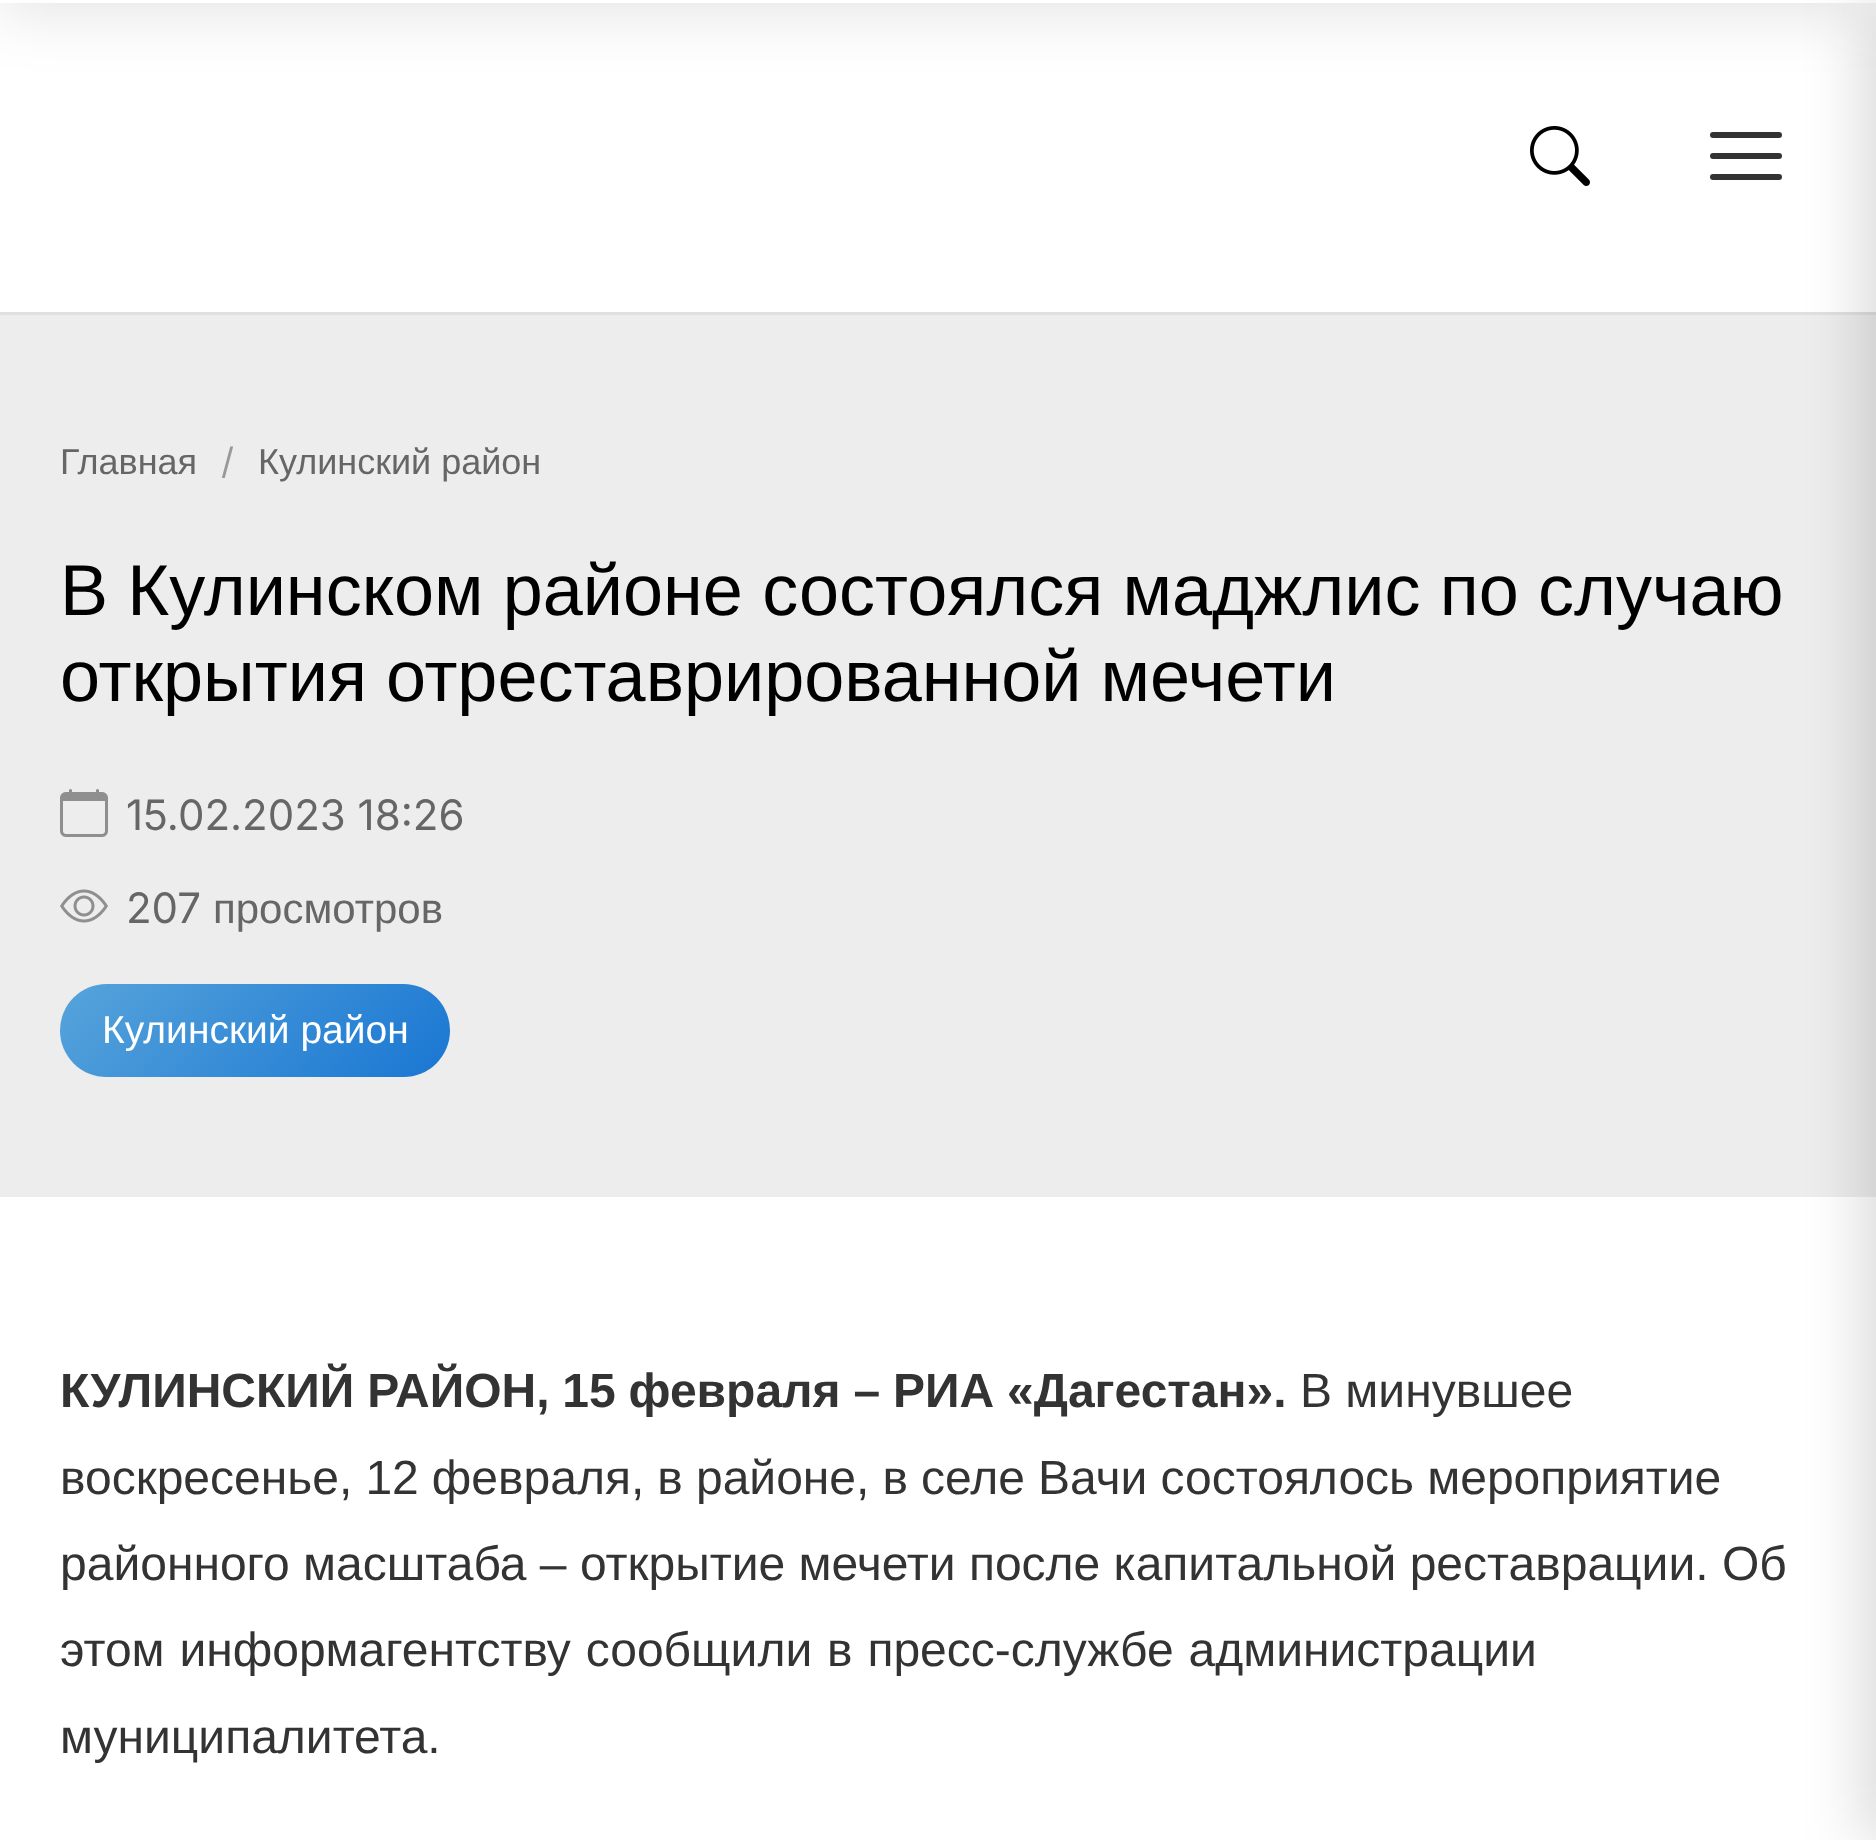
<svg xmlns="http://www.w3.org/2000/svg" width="1876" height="1840">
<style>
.a{font:36px Liberation Sans;fill:#666}
.b{font:36px Inter;fill:#999}
.c{font:72px Liberation Sans;fill:#000}
.d{font:42px Inter;fill:#666}
.e{font:42px Liberation Sans;fill:#666}
.f{font:39px Liberation Sans;fill:#fff}
.g{font:bold 48px Liberation Sans;fill:#333}
.h{font:48px Liberation Sans;fill:#333}
</style>
<defs>
<linearGradient id="g1" gradientUnits="userSpaceOnUse" x1="134" y1="910" x2="376" y2="1151"><stop offset="0" stop-color="#57a4db"/><stop offset="1" stop-color="#1976d2"/></linearGradient>
</defs>
<rect width="100%" height="100%" fill="#fff"/>
<path fill="#e0e0e0" d="M0 312h1876v3H0z"/>
<rect fill="#333" x="1710" y="132" width="72" height="6" rx="3"/>
<rect fill="#333" x="1710" y="153" width="72" height="6" rx="3"/>
<rect fill="#333" x="1710" y="174" width="72" height="6" rx="3"/>
<path fill="#0000001a" filter="blur(30px)" d="M0 -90h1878v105H0z"/>
<path fill="#fff" d="M0 0h1876v3H0z"/>
<path fill="#ededed" d="M0 315h1876v882H0z"/>
<path fill="#00000026" filter="blur(30px)" d="M1863 0h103v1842H1863z"/>
<image href="1.png" x="1530" y="126" width="60" height="60"/>
<image href="2.png" x="60" y="789" width="48" height="48"/>
<image href="3.png" x="60" y="889" width="48" height="34"/>
<rect fill="url(#g1)" x="60" y="984" width="390" height="93" rx="46.5"/>
<text class="a" x="60" y="474">Главная</text>
<text class="b" x="221" y="474">/</text>
<text class="a" x="258" y="474">Кулинский район</text>
<text class="c" x="60" y="615" word-spacing="-0.75">В Кулинском районе состоялся маджлис по случаю</text>
<text class="c" x="60" y="701" word-spacing="-1">открытия отреставрированной мечети</text>
<text class="d" x="126" y="830">15.02.2023 18:26</text>
<text class="d" x="126" y="923">207</text>
<text class="e" x="213" y="923">просмотров</text>
<text class="f" x="102" y="1043">Кулинский район</text>
<text class="g" x="60" y="1407" word-spacing="-0.5">КУЛИНСКИЙ РАЙОН, 15 февраля – РИА «Дагестан».</text>
<text class="h" x="1300" y="1407">В минувшее</text>
<text class="h" x="60" y="1494" word-spacing="-0.25">воскресенье, 12 февраля, в районе, в селе Вачи состоялось мероприятие</text>
<text class="h" x="60" y="1580">районного масштаба – открытие мечети после капитальной реставрации. Об</text>
<text class="h" x="60" y="1666" word-spacing="1.5">этом информагентству сообщили в пресс-службе администрации</text>
<text class="h" x="60" y="1753">муниципалитета.</text>
</svg>
